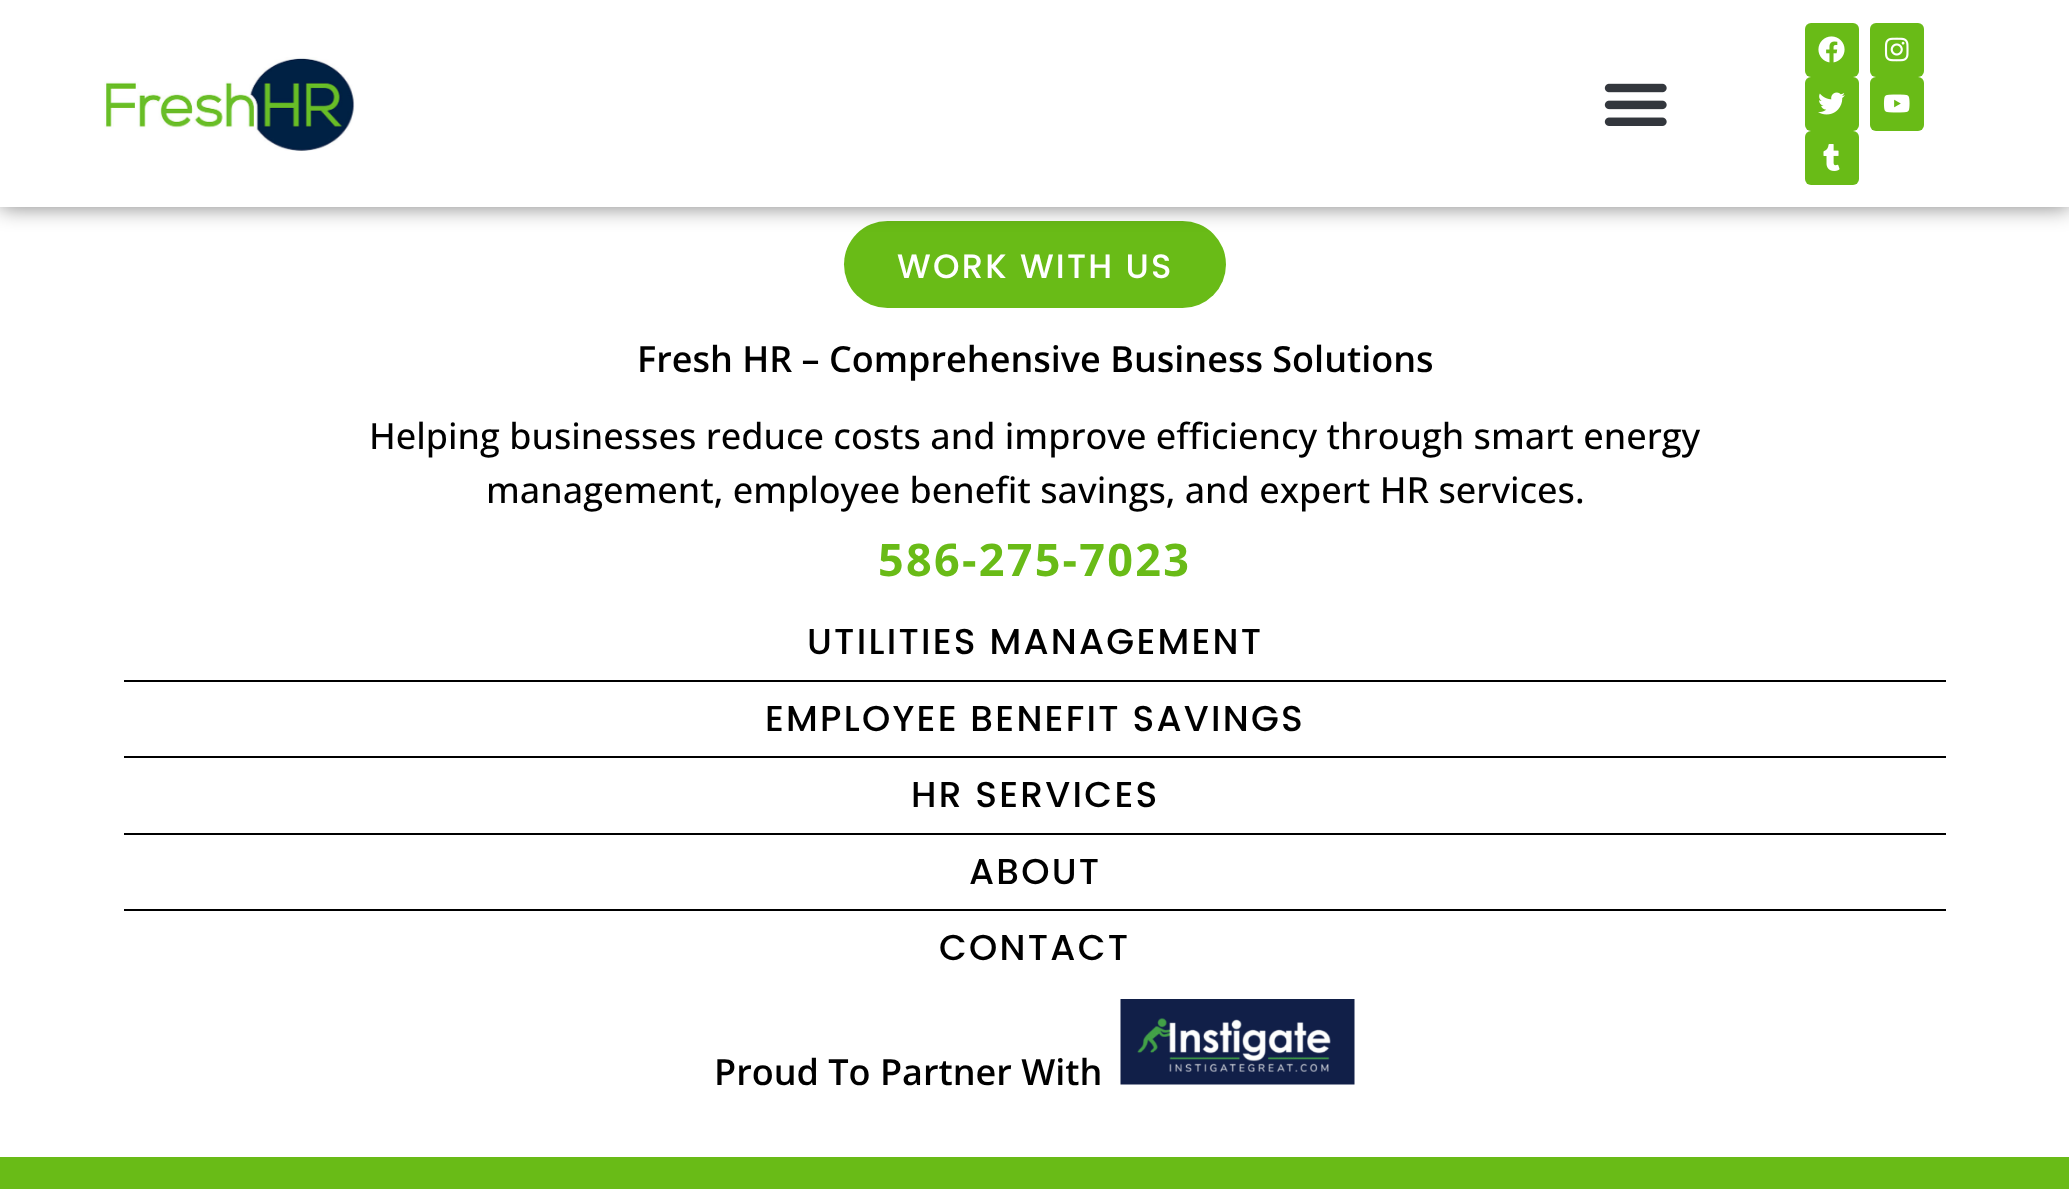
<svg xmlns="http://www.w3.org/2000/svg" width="2069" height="1189">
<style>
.a{font:500 33.75px Poppins;letter-spacing:2.25px;fill:#fff}
.b{font:600 36px Open Sans;fill:#000}
.c{font:500 36px Open Sans;fill:#000}
.d{font:bold 45px Open Sans;letter-spacing:2.25px;fill:#69bb17}
.e{font:500 36px Poppins;letter-spacing:2.25px;fill:#000}
</style>
<rect width="100%" height="100%" fill="#fff"/>
<rect fill="#69bb17" x="844" y="221" width="382" height="87" rx="43.5"/>
<path fill="#00000080" filter="blur(11px)" d="M0 0h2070v207H0z"/>
<path fill="#fff" d="M0 0h2069v207H0z"/>
<image href="1.png" x="104" y="57" width="251" height="94"/>
<image href="2.png" x="1604" y="83" width="63" height="43"/>
<rect fill="#69bb17" x="1805" y="23" width="54" height="54" rx="6"/>
<image href="3.png" x="1818" y="36" width="27" height="27"/>
<rect fill="#69bb17" x="1870" y="23" width="54" height="54" rx="6"/>
<image href="4.png" x="1884" y="37" width="25" height="25"/>
<rect fill="#69bb17" x="1805" y="77" width="54" height="54" rx="6"/>
<image href="5.png" x="1818" y="92" width="27" height="23"/>
<rect fill="#69bb17" x="1870" y="77" width="54" height="54" rx="6"/>
<image href="6.png" x="1883" y="94" width="27" height="19"/>
<rect fill="#69bb17" x="1805" y="131" width="54" height="54" rx="6"/>
<image href="7.png" x="1823" y="144" width="17" height="27"/>
<path fill="#69bb17" d="M0 1157h2069v32H0z"/>
<path fill="#000" d="M124 680h1822v2H124z"/>
<path fill="#000" d="M124 756h1822v2H124z"/>
<path fill="#000" d="M124 833h1822v2H124z"/>
<path fill="#000" d="M124 909h1822v2H124z"/>
<image href="8.png" x="1120" y="999" width="235" height="86"/>
<text class="a" x="897" y="278">WORK WITH US</text>
<text class="b" x="637" y="372">Fresh HR – Comprehensive Business Solutions</text>
<text class="c" x="369" y="449">Helping businesses reduce costs and improve efficiency through smart energy</text>
<text class="c" x="486" y="503">management, employee benefit savings, and expert HR services.</text>
<text class="d" x="878" y="576">586-275-7023</text>
<text class="e" x="807" y="654">UTILITIES MANAGEMENT</text>
<text class="e" x="765" y="731">EMPLOYEE BENEFIT SAVINGS</text>
<text class="e" x="911" y="807">HR SERVICES</text>
<text class="e" x="969" y="884">ABOUT</text>
<text class="e" x="939" y="960">CONTACT</text>
<text class="b" x="714" y="1085">Proud To Partner With</text>
</svg>
